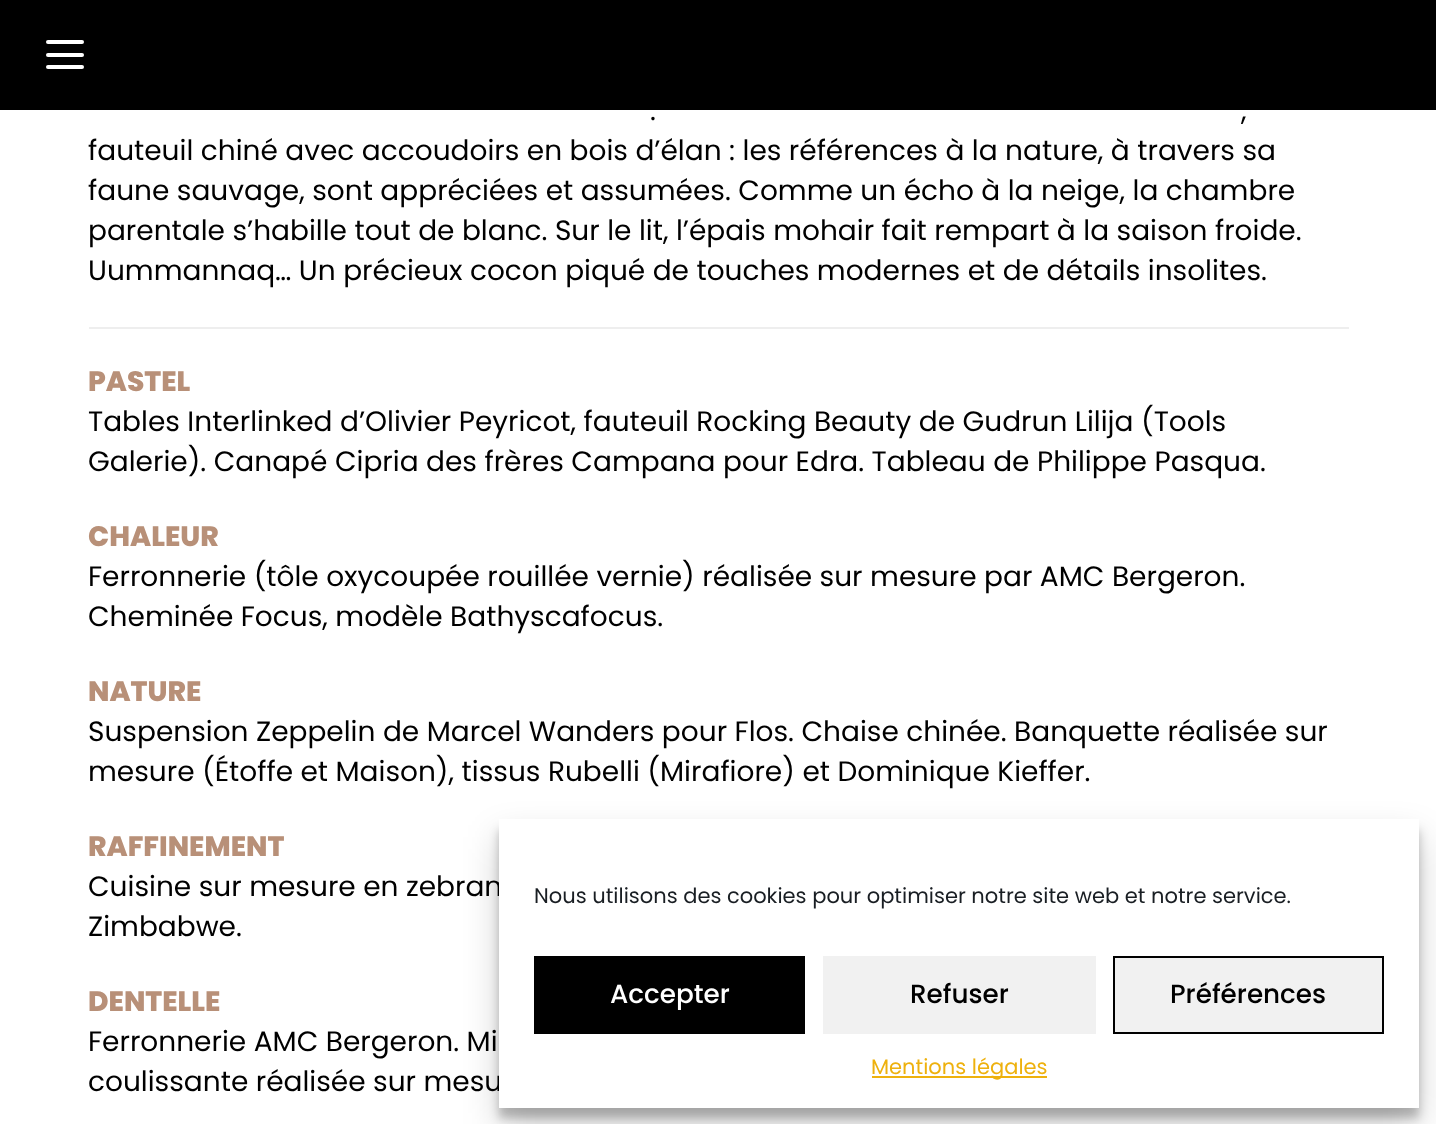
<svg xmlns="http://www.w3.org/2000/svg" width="1436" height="1124">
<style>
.a{font:28px Poppins;fill:#000}
.b{font:800 28px Poppins;fill:#b89078}
.c{font:21px Poppins;fill:#191e23}
.d{font:500 26.25px Poppins;fill:#fff}
.e{font:500 26.25px Poppins;fill:#000}
.f{font:21px Poppins;fill:#eeb10d}
</style>
<rect width="100%" height="100%" fill="#fff"/>
<path fill="#000" d="M0 0h1436v110H0z"/>
<rect fill="#fff" x="46" y="40" width="38" height="4" rx="2"/>
<rect fill="#fff" x="46" y="53" width="38" height="4" rx="2"/>
<rect fill="#fff" x="46" y="65" width="38" height="4" rx="2"/>
<path fill="#eee" d="M89 327h1260v2H89z"/>
<path fill="#0000003b" filter="blur(5px)" d="M499 830h920v288H499z"/>
<path fill="#00000030" filter="blur(17.5px)" d="M499 837h920v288H499z"/>
<text class="a" x="650" y="120">.</text>
<text class="a" x="1241" y="120">,</text>
<text class="a" x="88" y="160">fauteuil chiné avec accoudoirs en bois d’élan : les références à la nature, à travers sa</text>
<text class="a" x="88" y="200">faune sauvage, sont appréciées et assumées. Comme un écho à la neige, la chambre</text>
<text class="a" x="88" y="240">parentale s’habille tout de blanc. Sur le lit, l’épais mohair fait rempart à la saison froide.</text>
<text class="a" x="88" y="280">Uummannaq… Un précieux cocon piqué de touches modernes et de détails insolites.</text>
<text class="b" x="88" y="391">PASTEL</text>
<text class="a" x="88" y="431">Tables Interlinked d’Olivier Peyricot, fauteuil Rocking Beauty de Gudrun Lilija (Tools</text>
<text class="a" x="88" y="471">Galerie). Canapé Cipria des frères Campana pour Edra. Tableau de Philippe Pasqua.</text>
<text class="b" x="88" y="546">CHALEUR</text>
<text class="a" x="88" y="586">Ferronnerie (tôle oxycoupée rouillée vernie) réalisée sur mesure par AMC Bergeron.</text>
<text class="a" x="88" y="626">Cheminée Focus, modèle Bathyscafocus.</text>
<text class="b" x="88" y="701">NATURE</text>
<text class="a" x="88" y="741">Suspension Zeppelin de Marcel Wanders pour Flos. Chaise chinée. Banquette réalisée sur</text>
<text class="a" x="88" y="781">mesure (Étoffe et Maison), tissus Rubelli (Mirafiore) et Dominique Kieffer.</text>
<text class="b" x="88" y="856">RAFFINEMENT</text>
<text class="a" x="88" y="896">Cuisine sur mesure en zebran</text>
<text class="a" x="88" y="936">Zimbabwe.</text>
<text class="b" x="88" y="1011">DENTELLE</text>
<text class="a" x="88" y="1051">Ferronnerie AMC Bergeron. Mi</text>
<text class="a" x="88" y="1091">coulissante réalisée sur mesu</text>
<path fill="#fff" d="M499 819h920v289H499z"/>
<text class="c" x="534" y="903">Nous utilisons des cookies pour optimiser notre site web et notre service.</text>
<path fill="#000" d="M534 956h271v78H534z"/>
<text class="d" x="610" y="1003">Accepter</text>
<path fill="#f1f1f1" d="M823 956h273v78H823z"/>
<text class="e" x="910" y="1003">Refuser</text>
<path fill="#f1f1f1" stroke="#000" stroke-width="2" d="M1114 957h269v76H1114z"/>
<text class="e" x="1170" y="1003">Préférences</text>
<path fill="#eeb10d" d="M872 1076h175v2H872z"/>
<text class="f" x="871" y="1074">Mentions légales</text>
</svg>
